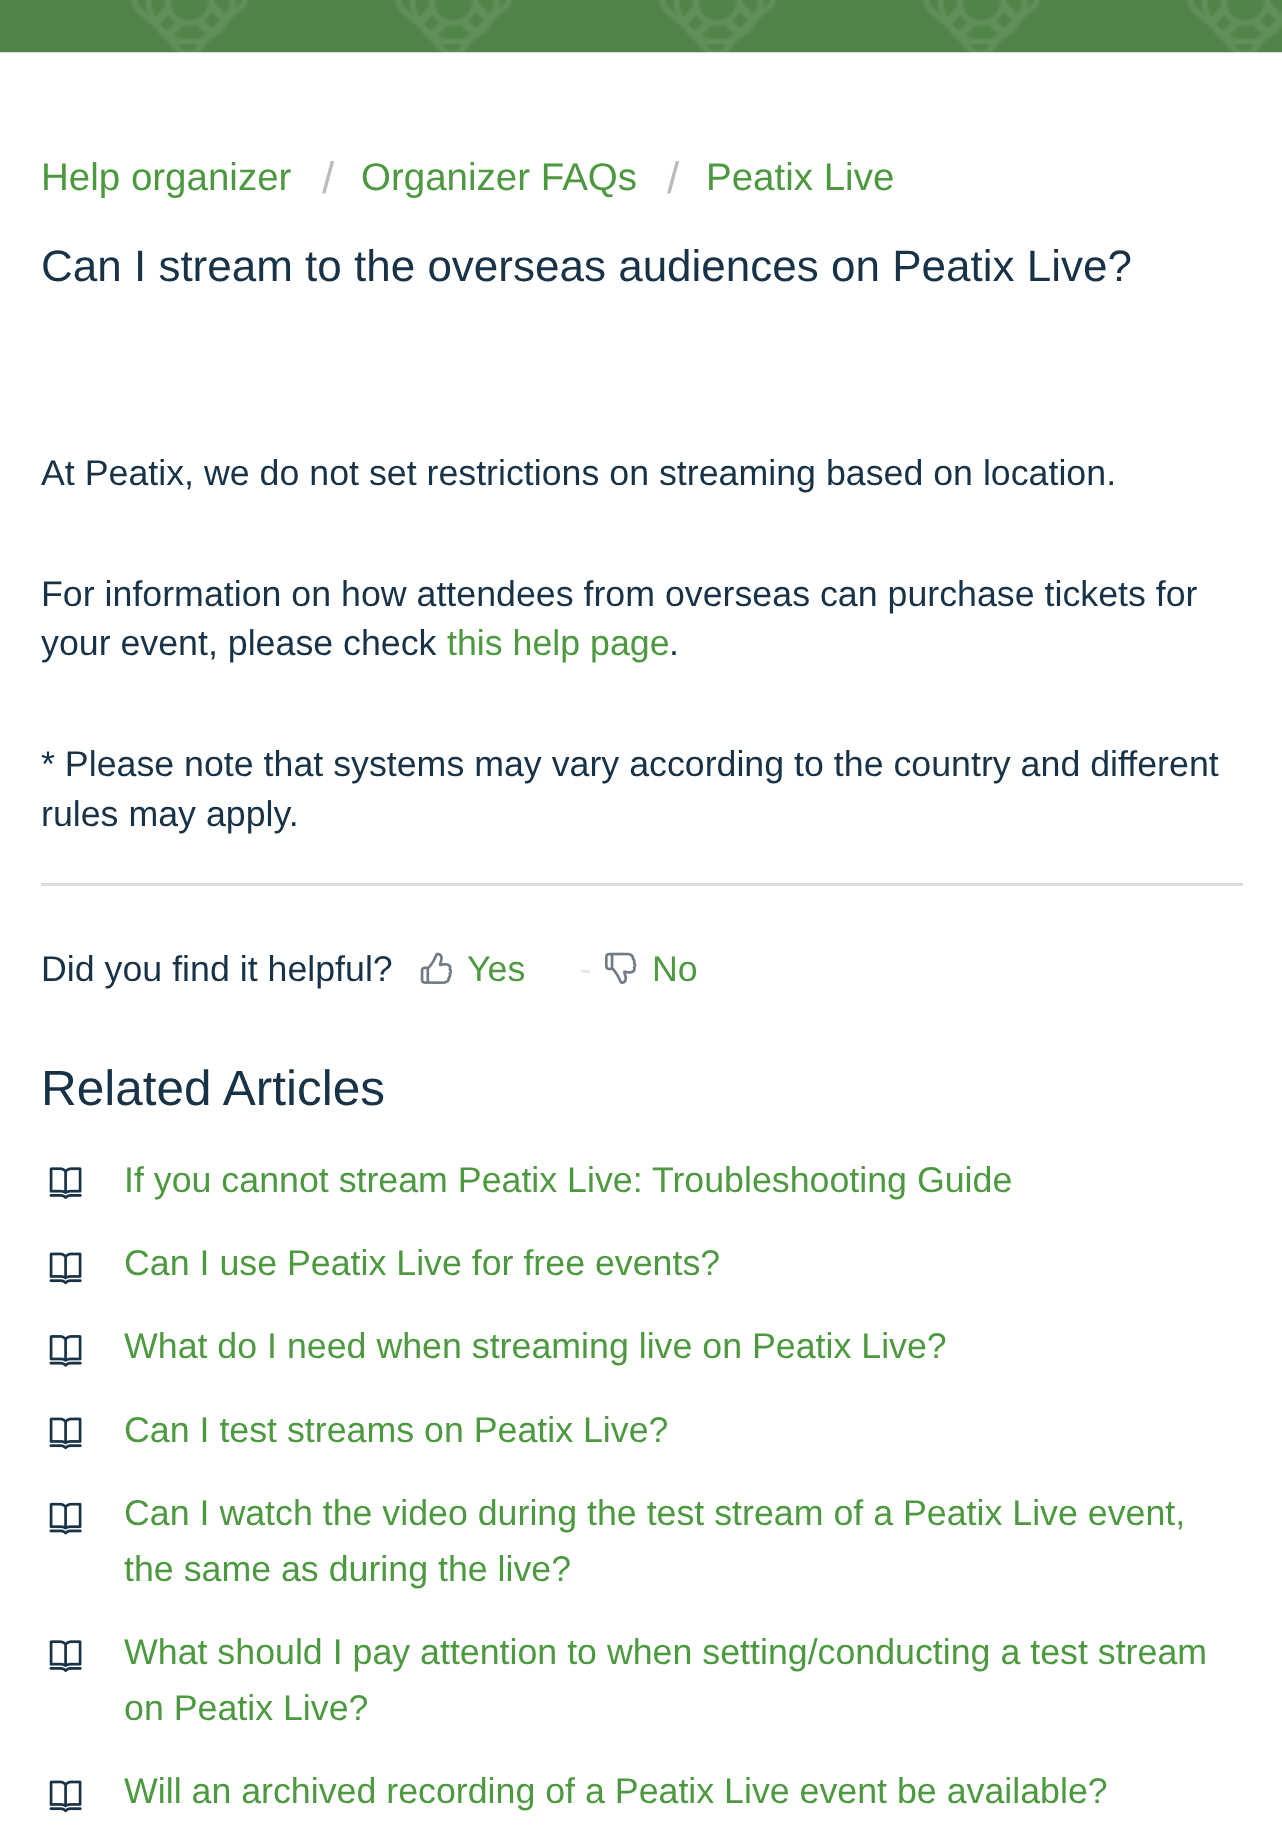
<svg xmlns="http://www.w3.org/2000/svg" width="1282" height="1829">
<style>
.a{font:38.5px Liberation Sans;fill:#4d9940}
.b{font:44px Liberation Sans;fill:#bbb}
.c{font:44px Liberation Sans;fill:#183247}
.d{font:35.75px Liberation Sans;fill:#183247}
.e{font:35.75px Liberation Sans;fill:#4d9940}
.f{font:35.75px Liberation Sans;fill:#e5e5e5}
.g{font:49.5px Liberation Sans;fill:#183247}
</style>
<rect width="100%" height="100%" fill="#fff"/>
<image href="1.png" x="0" y="0" width="1282" height="53"/>
<path fill="#dcdcdc" d="M41 883h1202v3H41z"/>
<image href="2.png" x="420" y="952" width="32" height="32"/>
<image href="3.png" x="605" y="952" width="32" height="32"/>
<image href="4.png" x="49" y="1167" width="33" height="32"/>
<image href="5.png" x="49" y="1252" width="33" height="33"/>
<image href="6.png" x="49" y="1335" width="33" height="32"/>
<image href="5.png" x="49" y="1417" width="33" height="33"/>
<image href="7.png" x="49" y="1502" width="33" height="33"/>
<image href="4.png" x="49" y="1640" width="33" height="32"/>
<image href="5.png" x="49" y="1780" width="33" height="33"/>
<text class="a" x="41" y="190">Help organizer</text>
<text class="b" x="322" y="193">/</text>
<text class="a" x="361" y="190">Organizer FAQs</text>
<text class="b" x="667" y="193">/</text>
<text class="a" x="706" y="190">Peatix Live</text>
<text class="c" x="41" y="281">Can I stream to the overseas audiences on Peatix Live?</text>
<text class="d" x="41" y="485">At Peatix, we do not set restrictions on streaming based on location.</text>
<text class="d" x="41" y="606">For information on how attendees from overseas can purchase tickets for</text>
<text class="d" x="41" y="655">your event, please check</text>
<text class="e" x="447" y="655">this help page</text>
<text class="d" x="669" y="655">.</text>
<text class="d" x="41" y="776">* Please note that systems may vary according to the country and different</text>
<text class="d" x="41" y="826">rules may apply.</text>
<text class="d" x="41" y="981">Did you find it helpful?</text>
<text class="e" x="467" y="981">Yes</text>
<text class="f" x="580" y="981">-</text>
<text class="e" x="652" y="981">No</text>
<text class="g" x="41" y="1105">Related Articles</text>
<text class="e" x="124" y="1192">If you cannot stream Peatix Live: Troubleshooting Guide</text>
<text class="e" x="124" y="1275">Can I use Peatix Live for free events?</text>
<text class="e" x="124" y="1358">What do I need when streaming live on Peatix Live?</text>
<text class="e" x="124" y="1442">Can I test streams on Peatix Live?</text>
<text class="e" x="124" y="1525">Can I watch the video during the test stream of a Peatix Live event,</text>
<text class="e" x="124" y="1581">the same as during the live?</text>
<text class="e" x="124" y="1664">What should I pay attention to when setting/conducting a test stream</text>
<text class="e" x="124" y="1720">on Peatix Live?</text>
<text class="e" x="124" y="1803">Will an archived recording of a Peatix Live event be available?</text>
</svg>
